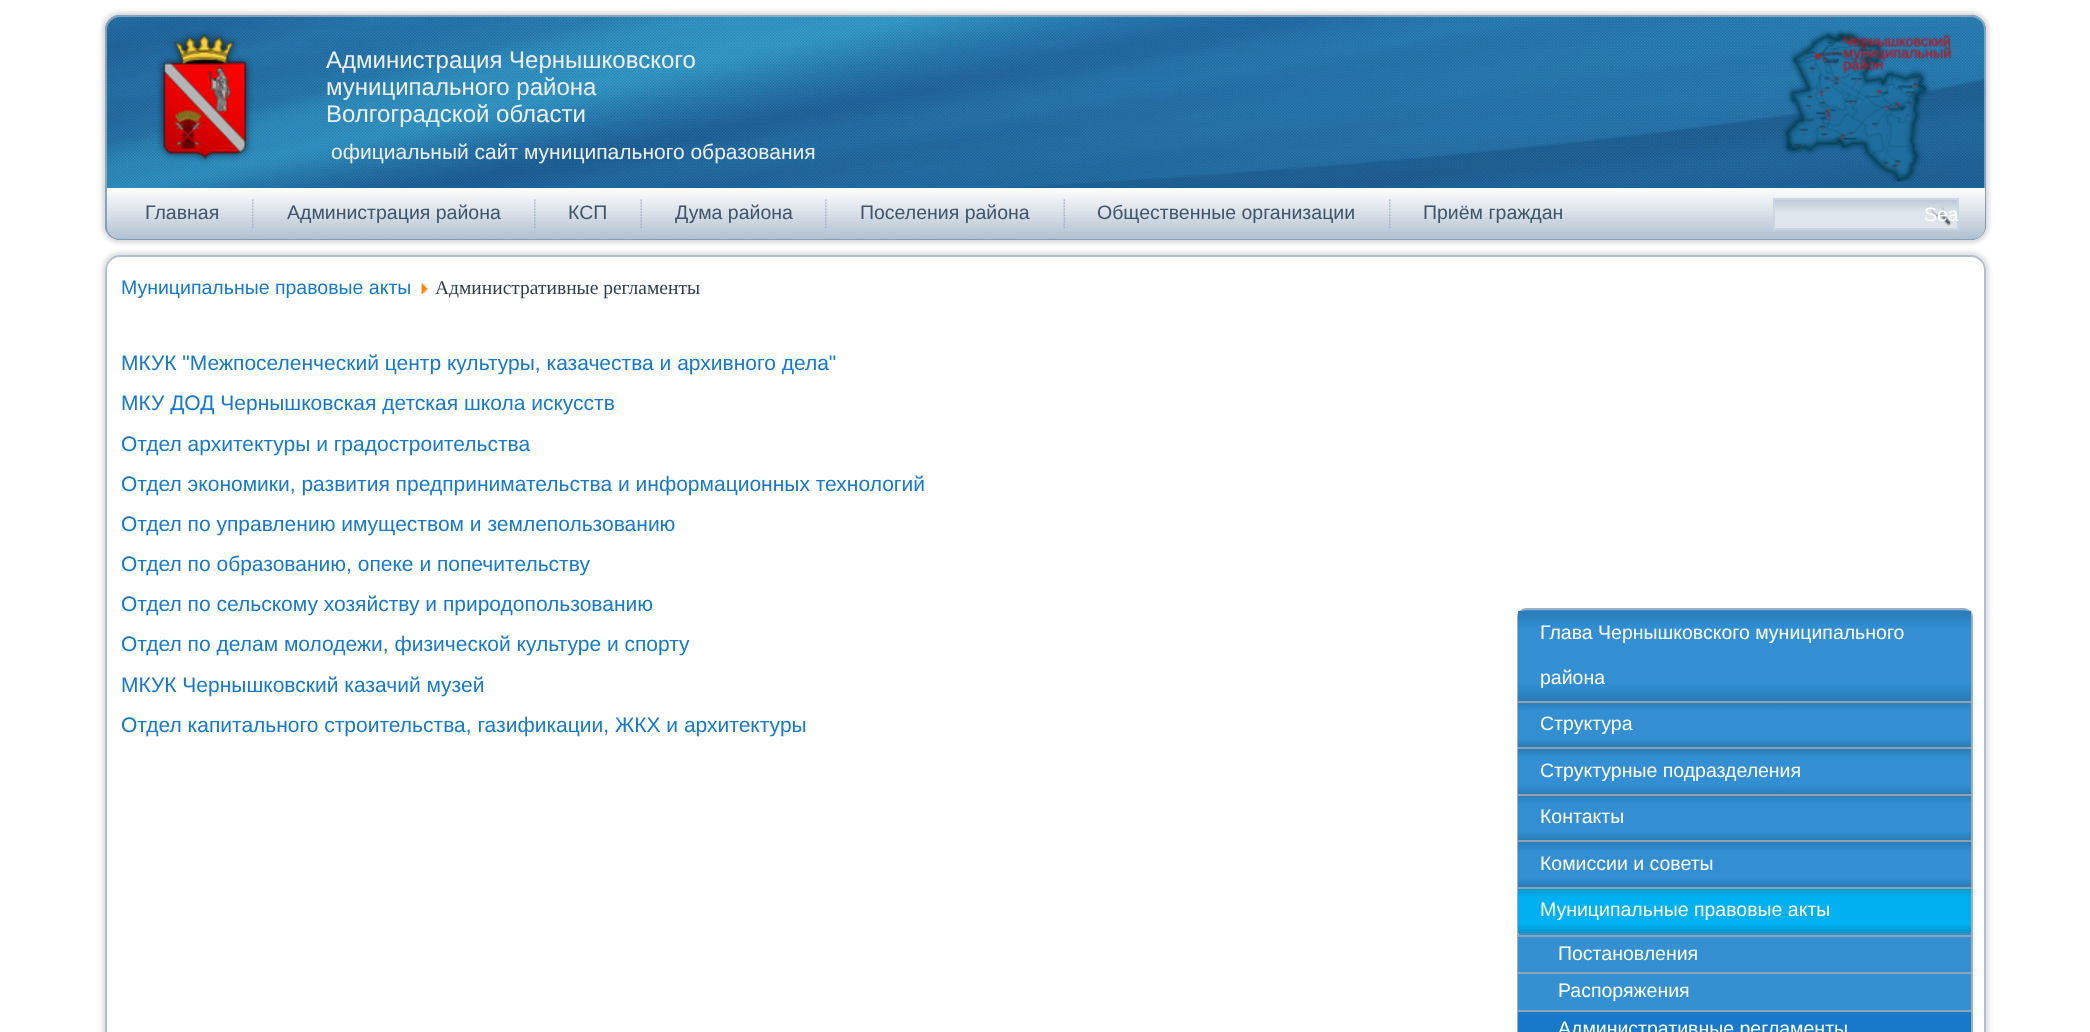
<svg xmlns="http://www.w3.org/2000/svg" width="2090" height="1032">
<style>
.a{font:24px Liberation Sans;fill:#edf0f2}
.b{font:21px Liberation Sans;fill:#edf0f2}
.c{font:19.5px Liberation Sans;fill:#3f5469}
.d{font:19.5px Liberation Sans;fill:#fff}
.e{font:19.5px Liberation Sans;fill:#1878ca}
.f{font:19.5px Liberation Serif;fill:#303f50}
.g{font:21px Liberation Sans;fill:#1878ca}
</style>
<defs>
<linearGradient id="g1" gradientUnits="userSpaceOnUse" x1="1046" y1="187" x2="1046" y2="239"><stop offset="0" stop-color="#fff"/><stop offset="1" stop-color="#b2c1d1"/></linearGradient>
<linearGradient id="g2" gradientUnits="userSpaceOnUse" x1="1866" y1="200" x2="1866" y2="228"><stop offset="0" stop-color="#bcc9d7"/><stop offset="0.4" stop-color="#dce3ea"/><stop offset="0.5" stop-color="#dfe5ec"/><stop offset="1" stop-color="#dfe5ec"/></linearGradient>
<clipPath id="clip1"><path d="M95 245h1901v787h-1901zm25 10h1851c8.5 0 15 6.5 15 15v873c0 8.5-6.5 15-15 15h-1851c-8.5 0-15-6.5-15-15v-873c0-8.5 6.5-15 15-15z" clip-rule="evenodd"/></clipPath>
<linearGradient id="g3" gradientUnits="userSpaceOnUse" x1="1745" y1="611" x2="1745" y2="701"><stop offset="0" stop-color="#2a7cb7"/><stop offset="0.17" stop-color="#2f8dd0"/><stop offset="0.2" stop-color="#338fd1"/><stop offset="0.8" stop-color="#338fd1"/><stop offset="0.83" stop-color="#2f8dd0"/><stop offset="1" stop-color="#2a7cb7"/></linearGradient>
<linearGradient id="g4" gradientUnits="userSpaceOnUse" x1="1745" y1="702" x2="1745" y2="747"><stop offset="0" stop-color="#2a7cb7"/><stop offset="0.17" stop-color="#2f8dd0"/><stop offset="0.2" stop-color="#338fd1"/><stop offset="0.8" stop-color="#338fd1"/><stop offset="0.83" stop-color="#2f8dd0"/><stop offset="1" stop-color="#2a7cb7"/></linearGradient>
<linearGradient id="g5" gradientUnits="userSpaceOnUse" x1="1745" y1="749" x2="1745" y2="794"><stop offset="0" stop-color="#2a7cb7"/><stop offset="0.17" stop-color="#2f8dd0"/><stop offset="0.2" stop-color="#338fd1"/><stop offset="0.8" stop-color="#338fd1"/><stop offset="0.83" stop-color="#2f8dd0"/><stop offset="1" stop-color="#2a7cb7"/></linearGradient>
<linearGradient id="g6" gradientUnits="userSpaceOnUse" x1="1745" y1="795" x2="1745" y2="840"><stop offset="0" stop-color="#2a7cb7"/><stop offset="0.17" stop-color="#2f8dd0"/><stop offset="0.2" stop-color="#338fd1"/><stop offset="0.8" stop-color="#338fd1"/><stop offset="0.83" stop-color="#2f8dd0"/><stop offset="1" stop-color="#2a7cb7"/></linearGradient>
<linearGradient id="g7" gradientUnits="userSpaceOnUse" x1="1745" y1="842" x2="1745" y2="887"><stop offset="0" stop-color="#2a7cb7"/><stop offset="0.17" stop-color="#2f8dd0"/><stop offset="0.2" stop-color="#338fd1"/><stop offset="0.8" stop-color="#338fd1"/><stop offset="0.83" stop-color="#2f8dd0"/><stop offset="1" stop-color="#2a7cb7"/></linearGradient>
<linearGradient id="g8" gradientUnits="userSpaceOnUse" x1="1745" y1="888" x2="1745" y2="933"><stop offset="0" stop-color="#0096cc"/><stop offset="0.2" stop-color="#00b0f0"/><stop offset="0.8" stop-color="#00b0f0"/><stop offset="1" stop-color="#0096cc"/></linearGradient>
</defs>
<rect width="100%" height="100%" fill="#fff"/>
<rect fill="#00000026" filter="blur(2px)" x="102" y="12" width="1887" height="231" rx="18"/>
<image href="1.png" x="105" y="15" width="1881" height="225"/>
<rect fill="none" stroke="#9cafc4cc" stroke-width="2" x="106" y="16" width="1879" height="223" rx="14"/>
<image href="2.png" x="157" y="30" width="96" height="133"/>
<image href="3.png" x="1781" y="29" width="171" height="153"/>
<path fill="url(#g1)" d="M107 188h1878v39c0 6.5-5.5 12-12 12h-1854c-6.5 0-12-5.5-12-12z"/>
<image href="4.png" x="252" y="199" width="2" height="30"/>
<image href="4.png" x="534" y="199" width="2" height="30"/>
<image href="5.png" x="640" y="199" width="2" height="30"/>
<image href="4.png" x="825" y="199" width="2" height="30"/>
<image href="5.png" x="1063" y="199" width="2" height="30"/>
<image href="4.png" x="1389" y="199" width="2" height="30"/>
<path fill="url(#g2)" d="M1775 200h182v28H1775z"/>
<path fill="none" stroke="#ccd6e0" stroke-width="2" d="M1774 199h184v30H1774z"/>
<image href="6.png" x="1931" y="204" width="21" height="22"/>
<g clip-path="url(#clip1)">
<rect fill="#0000001f" filter="blur(2px)" x="102" y="252" width="1887" height="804" rx="18"/>
</g>
<rect fill="#ffffffcc" x="105" y="255" width="1881" height="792" rx="15"/>
<rect fill="none" stroke="#9cafc4cc" stroke-width="2" x="106" y="256" width="1879" height="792" rx="14"/>
<image href="7.png" x="421" y="283" width="7" height="11"/>
<rect fill="#3490d1" stroke="#9cafc4" stroke-width="2" x="1518" y="609" width="454" height="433" rx="8"/>
<path fill="url(#g3)" d="M1518 611h453v90H1518z"/>
<path fill="#92a1af" d="M1518 701h453v2H1518z"/>
<path fill="url(#g4)" d="M1518 703h453v44H1518z"/>
<path fill="#92a1af" d="M1518 747h453v2H1518z"/>
<path fill="url(#g5)" d="M1518 749h453v45H1518z"/>
<path fill="#92a1af" d="M1518 794h453v2H1518z"/>
<path fill="url(#g6)" d="M1518 796h453v44H1518z"/>
<path fill="#92a1af" d="M1518 840h453v2H1518z"/>
<path fill="url(#g7)" d="M1518 842h453v45H1518z"/>
<path fill="#92a1af" d="M1518 887h453v2H1518z"/>
<path fill="url(#g8)" d="M1518 889h453v44H1518z"/>
<path fill="#92a1af" d="M1518 935h453v2H1518z"/>
<path fill="#3490d1" d="M1518 937h1v35H1518z"/>
<path fill="#8fa5bc" d="M1518 972h453v2H1518z"/>
<path fill="#3490d1" d="M1518 974h1v36H1518z"/>
<path fill="#8fa5bc" d="M1518 1010h453v2H1518z"/>
<path fill="#1878ca" d="M1518 1012h453v20H1518z"/>
<text class="a" x="326" y="68">Администрация Чернышковского</text>
<text class="a" x="326" y="95">муниципального района</text>
<text class="a" x="326" y="122">Волгоградской области</text>
<text class="b" x="331" y="159">официальный сайт муниципального образования</text>
<text class="c" x="145" y="219">Главная</text>
<text class="c" x="287" y="219">Администрация района</text>
<text class="c" x="568" y="219">КСП</text>
<text class="c" x="675" y="219">Дума района</text>
<text class="c" x="860" y="219">Поселения района</text>
<text class="c" x="1097" y="219">Общественные организации</text>
<text class="c" x="1423" y="219">Приём граждан</text>
<text class="d" x="1924" y="221">Sea</text>
<text class="e" x="121" y="294">Муниципальные правовые акты</text>
<text class="f" x="435" y="294">Административные регламенты</text>
<text class="g" x="121" y="370">МКУК "Межпоселенческий центр культуры, казачества и архивного дела"</text>
<text class="g" x="121" y="410">МКУ ДОД Чернышковская детская школа искусств</text>
<text class="g" x="121" y="451">Отдел архитектуры и градостроительства</text>
<text class="g" x="121" y="491">Отдел экономики, развития предпринимательства и информационных технологий</text>
<text class="g" x="121" y="531">Отдел по управлению имуществом и землепользованию</text>
<text class="g" x="121" y="571">Отдел по образованию, опеке и попечительству</text>
<text class="g" x="121" y="611">Отдел по сельскому хозяйству и природопользованию</text>
<text class="g" x="121" y="651">Отдел по делам молодежи, физической культуре и спорту</text>
<text class="g" x="121" y="692">МКУК Чернышковский казачий музей</text>
<text class="g" x="121" y="732">Отдел капитального строительства, газификации, ЖКХ и архитектуры</text>
<text class="d" x="1540" y="639">Глава Чернышковского муниципального</text>
<text class="d" x="1540" y="684">района</text>
<text class="d" x="1540" y="730">Структура</text>
<text class="d" x="1540" y="777">Структурные подразделения</text>
<text class="d" x="1540" y="823">Контакты</text>
<text class="d" x="1540" y="870">Комиссии и советы</text>
<text class="d" x="1540" y="916">Муниципальные правовые акты</text>
<text class="d" x="1558" y="960">Постановления</text>
<text class="d" x="1558" y="997">Распоряжения</text>
<text class="d" x="1558" y="1035">Административные регламенты</text>
</svg>
